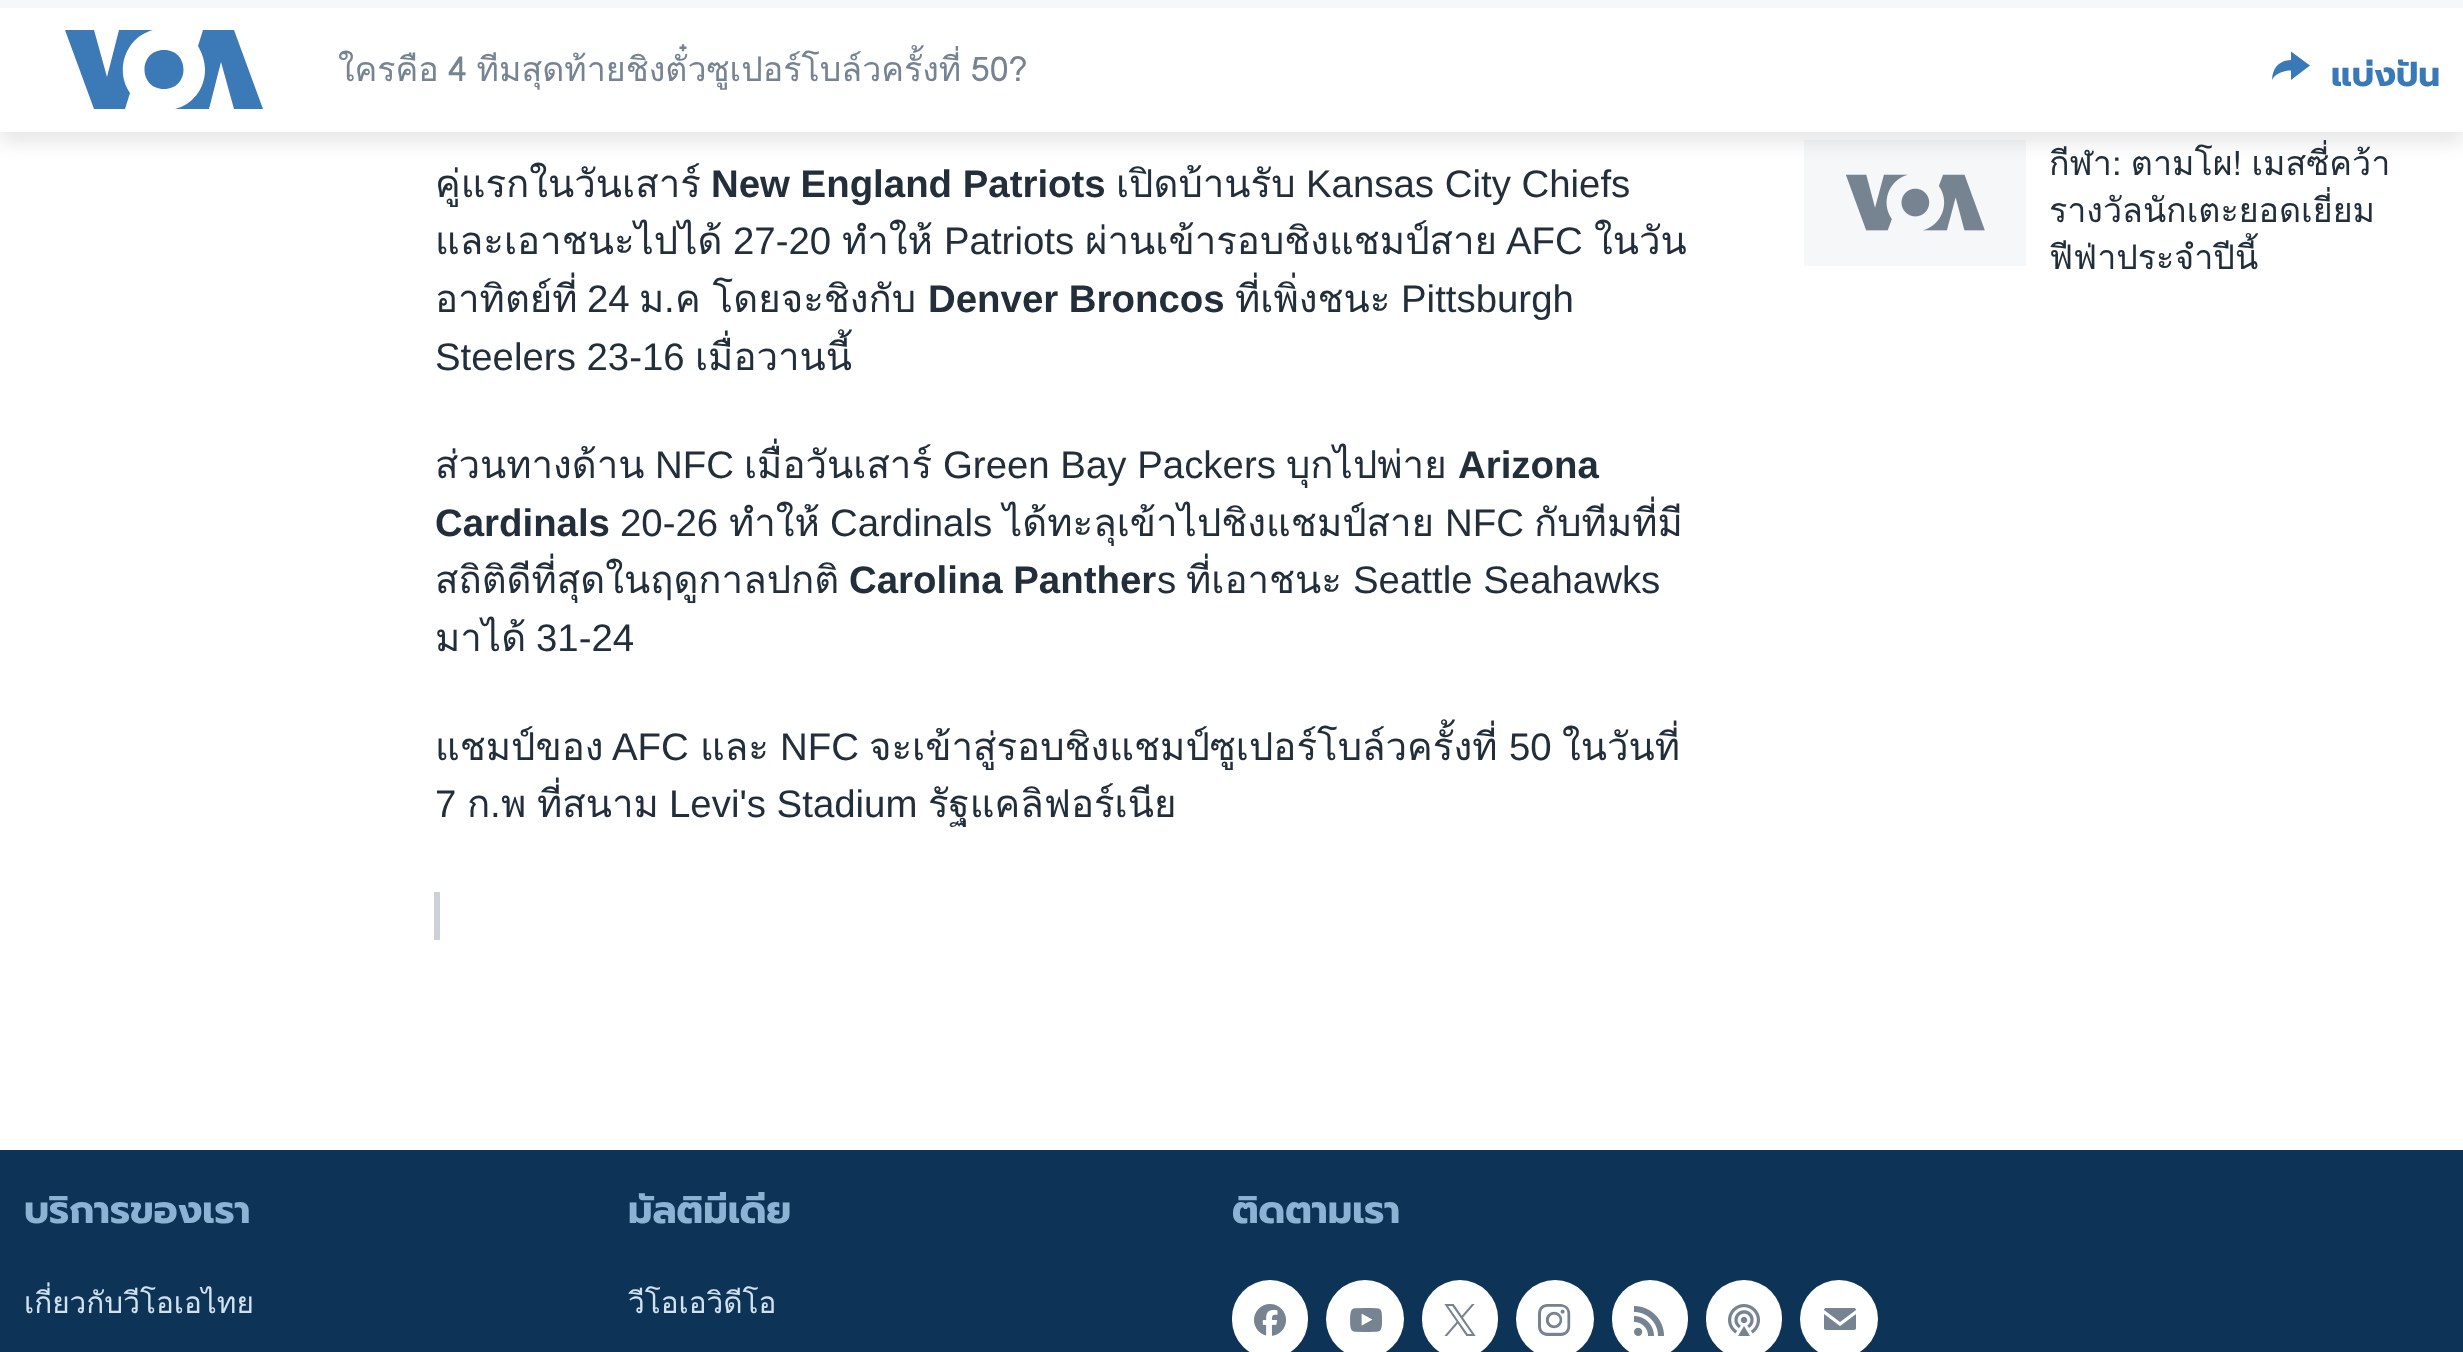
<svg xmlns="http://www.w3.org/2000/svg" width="2463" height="1352">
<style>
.a{font:34px Loma;fill:#768492}
.b{font:bold 34px Prompt;fill:#3a79b7}
.c{font:38.4px Loma;fill:#222f3a}
.d{font:bold 38.4px Liberation Sans;fill:#222f3a}
.e{font:38.4px Liberation Sans;fill:#222f3a}
.f{font:34px Loma;fill:#222f3a}
.g{font:bold 38.25px Prompt;fill:#8db3d4}
.h{font:29.75px Loma;fill:#d1e1ee}
</style>
<rect width="100%" height="100%" fill="#fff"/>
<path fill="#f6f7f8" d="M1804 140h222v126H1804z"/>
<path fill="#0000001a" filter="blur(10px)" d="M0 10h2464v132H0z"/>
<path fill="#fff" d="M0 8h2463v124H0z"/>
<path fill="#f6f7f8" d="M0 0h2463v8H0z"/>
<path fill="#3b79b7" d="M130 93l-5 16h-31l-29-79h29l13 47l12-47h34c-27 7-39 40-23 63zm34-43c-26 0-26 39 0 39c26 0 26-39 0-39zm41 20c0 19-13 35-30 39h34l12-47l13 47h29l-29-79h-31l-5 16c4 7 7 15 7 24z"/>
<path fill="#3a79b7" d="M2272 80c.5-12 7-19.5 19-20v-8.5l19 14l-19 14.5v-9.5c-7 0-16 2.5-19 9.5z"/>
<path fill="#cbd1d6" d="M434 892h6v48H434z"/>
<image href="1.png" x="1846" y="174" width="139" height="57"/>
<path fill="#0d3456" d="M0 1150h2463v202H0z"/>
<rect fill="#fff" x="1232" y="1280" width="76" height="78" rx="38"/>
<image href="2.png" x="1254" y="1304" width="32" height="32"/>
<circle fill="#fff" cx="1365" cy="1319" r="39"/>
<image href="3.png" x="1350" y="1308" width="32" height="24"/>
<rect fill="#fff" x="1422" y="1280" width="76" height="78" rx="38"/>
<image href="4.png" x="1444" y="1304" width="32" height="32"/>
<circle fill="#fff" cx="1555" cy="1319" r="39"/>
<image href="5.png" x="1538" y="1304" width="33" height="32"/>
<rect fill="#fff" x="1612" y="1280" width="76" height="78" rx="38"/>
<image href="6.png" x="1634" y="1306" width="30" height="30"/>
<rect fill="#fff" x="1706" y="1280" width="76" height="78" rx="38"/>
<image href="7.png" x="1728" y="1304" width="32" height="32"/>
<circle fill="#fff" cx="1839" cy="1319" r="39"/>
<image href="8.png" x="1824" y="1308" width="32" height="22"/>
<text class="a" x="338" y="81" word-spacing="-2">ใครคือ 4 ทีมสุดท้ายชิงตั๋วซูเปอร์โบล์วครั้งที่ 50?</text>
<text class="b" x="2331" y="86">แบ่งปัน</text>
<text class="c" x="435" y="197">คู่แรกในวันเสาร์</text>
<text class="d" x="711" y="197">New England Patriots</text>
<text class="c" x="1116" y="197">เปิดบ้านรับ</text>
<text class="e" x="1306" y="197">Kansas City Chiefs</text>
<text class="c" x="435" y="254">และเอาชนะไปได้</text>
<text class="e" x="733" y="254">27-20</text>
<text class="c" x="842" y="254">ทำให้</text>
<text class="e" x="944" y="254">Patriots</text>
<text class="c" x="1085" y="254">ผ่านเข้ารอบชิงแชมป์สาย</text>
<text class="e" x="1506" y="254">AFC</text>
<text class="c" x="1594" y="254">ในวัน</text>
<text class="c" x="435" y="312">อาทิตย์ที่</text>
<text class="e" x="587" y="312">24</text>
<text class="c" x="639" y="312">ม</text>
<text class="e" x="664" y="312">.</text>
<text class="c" x="675" y="312" word-spacing="-1">ค โดยจะชิงกับ</text>
<text class="d" x="928" y="312">Denver Broncos</text>
<text class="c" x="1235" y="312">ที่เพิ่งชนะ</text>
<text class="e" x="1401" y="312">Pittsburgh</text>
<text class="e" x="435" y="370">Steelers 23-16</text>
<text class="c" x="695" y="370">เมื่อวานนี้</text>
<text class="c" x="435" y="478">ส่วนทางด้าน</text>
<text class="e" x="655" y="478">NFC</text>
<text class="c" x="744" y="478">เมื่อวันเสาร์</text>
<text class="e" x="943" y="478">Green Bay Packers</text>
<text class="c" x="1286" y="478">บุกไปพ่าย</text>
<text class="d" x="1458" y="478">Arizona</text>
<text class="d" x="435" y="536">Cardinals</text>
<text class="e" x="620" y="536">20-26</text>
<text class="c" x="729" y="536">ทำให้</text>
<text class="e" x="830" y="536">Cardinals</text>
<text class="c" x="1003" y="536">ได้ทะลุเข้าไปชิงแชมป์สาย</text>
<text class="e" x="1445" y="536">NFC</text>
<text class="c" x="1534" y="536">กับทีมที่มี</text>
<text class="c" x="435" y="593">สถิติดีที่สุดในฤดูกาลปกติ</text>
<text class="d" x="849" y="593">Carolina Panther</text>
<text class="e" x="1157" y="593">s</text>
<text class="c" x="1186" y="593">ที่เอาชนะ</text>
<text class="e" x="1353" y="593">Seattle Seahawks</text>
<text class="c" x="435" y="651">มาได้</text>
<text class="e" x="536" y="651">31-24</text>
<text class="c" x="435" y="760">แชมป์ของ</text>
<text class="e" x="612" y="760">AFC</text>
<text class="c" x="700" y="760">และ</text>
<text class="e" x="780" y="760">NFC</text>
<text class="c" x="869" y="760">จะเข้าสู่รอบชิงแชมป์ซูเปอร์โบล์วครั้งที่</text>
<text class="e" x="1509" y="760">50</text>
<text class="c" x="1562" y="760">ในวันที่</text>
<text class="e" x="435" y="817">7</text>
<text class="c" x="467" y="817">ก</text>
<text class="e" x="490" y="817">.</text>
<text class="c" x="501" y="817">พ</text>
<text class="c" x="537" y="817">ที่สนาม</text>
<text class="e" x="669" y="817">Levi's Stadium</text>
<text class="c" x="928" y="817">รัฐแคลิฟอร์เนีย</text>
<text class="f" x="2049" y="175" word-spacing="-2">กีฬา: ตามโผ! เมสซี่คว้า</text>
<text class="f" x="2049" y="222">รางวัลนักเตะยอดเยี่ยม</text>
<text class="f" x="2049" y="269">ฟีฟ่าประจำปีนี้</text>
<text class="g" x="24" y="1223">บริการของเรา</text>
<text class="h" x="24" y="1313">เกี่ยวกับวีโอเอไทย</text>
<text class="g" x="628" y="1223">มัลติมีเดีย</text>
<text class="h" x="628" y="1313">วีโอเอวิดีโอ</text>
<text class="g" x="1232" y="1223">ติดตามเรา</text>
</svg>
